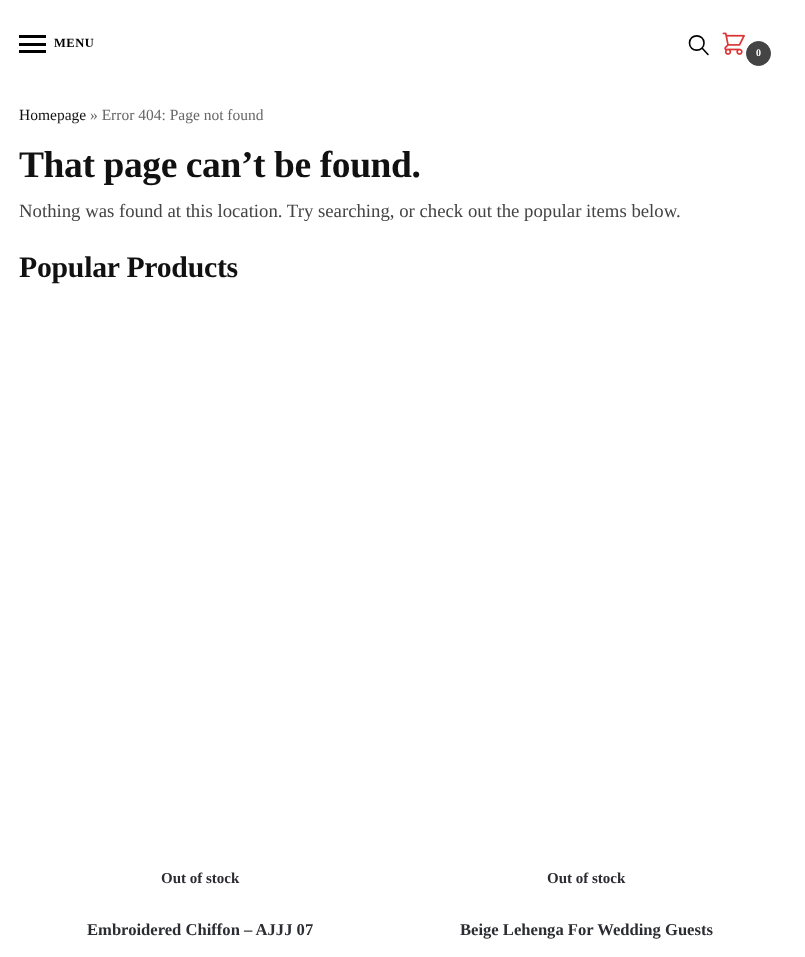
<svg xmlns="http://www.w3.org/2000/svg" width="805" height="957">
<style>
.a{font:bold 12.5px Liberation Serif;letter-spacing:0.5px;fill:#000}
.b{font:bold 10px Liberation Serif;fill:#fff}
.c{font:15.5px Liberation Serif;fill:#111}
.d{font:15.5px Liberation Serif;fill:#666}
.e{font:bold 37.5px Liberation Serif;letter-spacing:-0.4px;fill:#111}
.f{font:18.75px Liberation Serif;fill:#444}
.g{font:bold 29.75px Liberation Serif;letter-spacing:-0.25px;fill:#111}
.h{font:bold 15px Liberation Serif;fill:#2c2d33}
.i{font:bold 16.6px Liberation Serif;fill:#2c2d33}
</style>
<rect width="100%" height="100%" fill="#fff"/>
<path fill="#000" d="M19 35h27v3H19z"/>
<path fill="#000" d="M19 43h27v3H19z"/>
<path fill="#000" d="M19 50h27v3H19z"/>
<path fill="none" stroke="#000" stroke-width="1.6" stroke-linecap="round" stroke-linejoin="round" d="M708 54.5l-6-6.5m2-5c0 9.5-14.5 9.5-14.5 0c0-9.5 14.5-9.5 14.5 0z"/>
<image href="1.png" x="722" y="32" width="23" height="23"/>
<circle fill="#444" stroke="#444" cx="758.5" cy="53.5" r="12"/>
<text class="a" x="54" y="47">MENU</text>
<text class="b" x="756" y="56">0</text>
<text class="c" x="19" y="120">Homepage</text>
<text class="d" x="90" y="120">» Error 404: Page not found</text>
<text class="e" x="19" y="177">That page can’t be found.</text>
<text class="f" x="19" y="217">Nothing was found at this location. Try searching, or check out the popular items below.</text>
<text class="g" x="19" y="277">Popular Products</text>
<text class="h" x="161" y="883">Out of stock</text>
<text class="i" x="87" y="935">Embroidered Chiffon – AJJJ 07</text>
<text class="h" x="547" y="883">Out of stock</text>
<text class="i" x="460" y="935">Beige Lehenga For Wedding Guests</text>
</svg>
